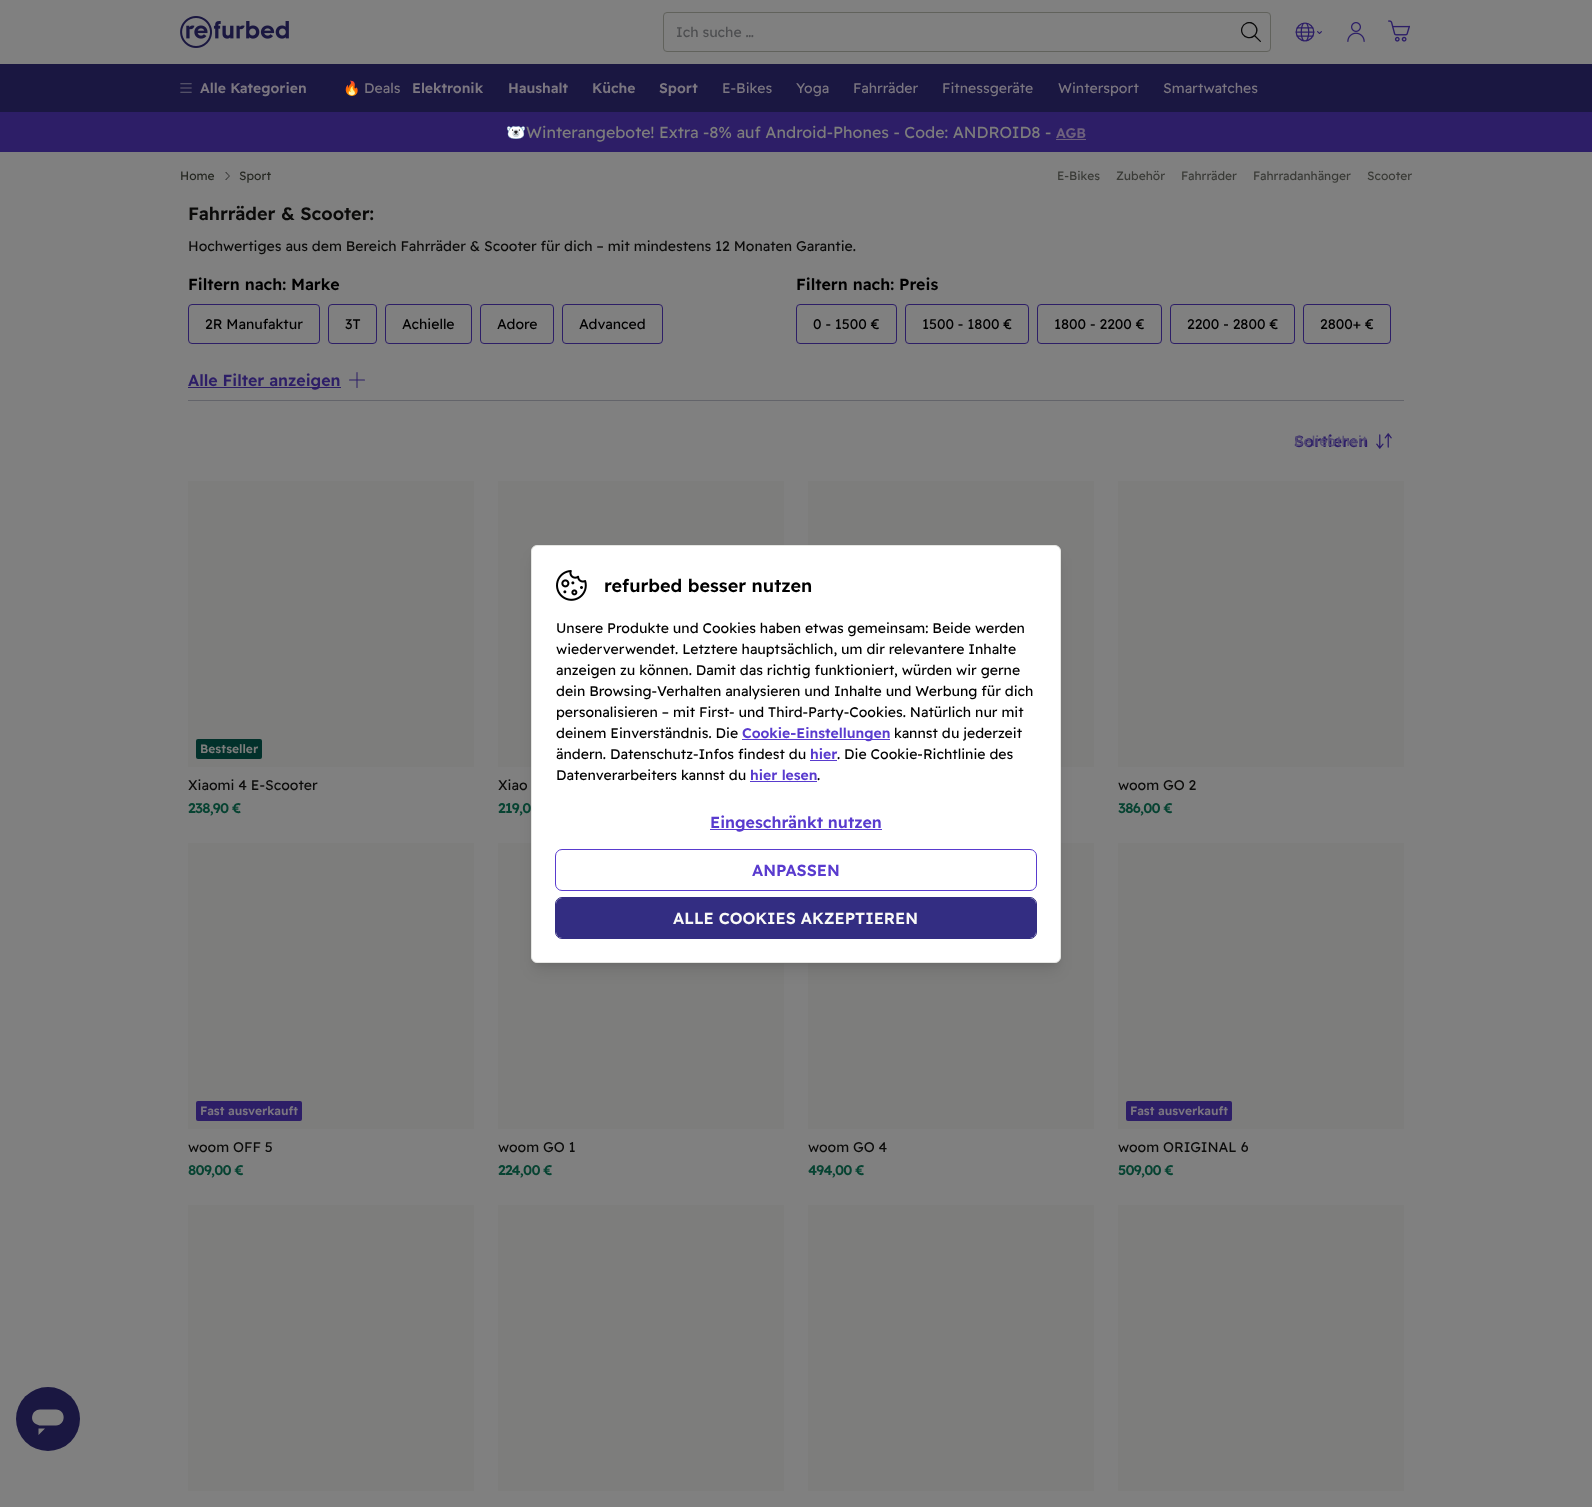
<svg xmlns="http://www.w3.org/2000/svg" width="1592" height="1507">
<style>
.a{font:14px Readex Pro;fill:#4d4e50}
.b{font:600 14px Readex Pro;fill:#7b7680}
.c{font:14px Noto Color Emoji;fill:#7b7680}
.d{font:14px Readex Pro;fill:#7b7680}
.e{font:16px Noto Color Emoji;fill:#7d7d7c}
.f{font:16px Readex Pro;fill:#7d7d7c}
.g{font:600 14px Readex Pro;fill:#6e617d}
.h{font:12px Readex Pro;fill:#252721}
.i{font:12px Readex Pro;fill:#393a36}
.j{font:600 18px Readex Pro;fill:#0b0b0a}
.k{font:14px Readex Pro;fill:#0b0b0a}
.l{font:600 16px Readex Pro;fill:#000}
.m{font:14px Readex Pro;fill:#000}
.n{font:600 16px Readex Pro;fill:#2d1e67}
.o{font:14px Readex Pro;fill:#554d73}
.p{font:600 12px Readex Pro;fill:#7d7d7c}
.q{font:600 14px Readex Pro;letter-spacing:-0.75px;fill:#074332}
.r{font:600 12px Readex Pro;fill:#7b7680}
.s{font:600 18px Readex Pro;fill:#000}
.t{font:600 14px Readex Pro;fill:#593bce}
.u{font:600 16px Readex Pro;fill:#593bce}
.v{font:600 16px Readex Pro;fill:#f9f9f7}
</style>
<defs>
<linearGradient id="g1" gradientUnits="userSpaceOnUse" x1="323" y1="88" x2="347" y2="88"><stop offset="0" stop-color="#1a1741"/><stop offset="1" stop-color="#1a1741" stop-opacity="0"/></linearGradient>
</defs>
<rect width="100%" height="100%" fill="#808080"/>
<image href="1.png" x="180" y="16" width="109" height="32"/>
<rect fill="none" stroke="#61625c" x="663.5" y="12.5" width="607" height="39" rx="3.5"/>
<image href="2.png" x="1241" y="22" width="20" height="20"/>
<image href="3.png" x="1295" y="22" width="20" height="20"/>
<image href="4.png" x="1317" y="31" width="5" height="3"/>
<image href="5.png" x="1347" y="22" width="18" height="20"/>
<image href="6.png" x="1388" y="20" width="22" height="22"/>
<path fill="#1a1741" d="M0 64h1592v48H0z"/>
<image href="7.png" x="180" y="83" width="12" height="10"/>
<path fill="#2d1e67" d="M0 112h1592v40H0z"/>
<path fill="#6e617d" d="M1056 139h30v1H1056z"/>
<image href="8.png" x="225" y="172" width="5" height="8"/>
<rect fill="none" stroke="#2d1e67" x="188.5" y="304.5" width="131" height="39" rx="3.5"/>
<rect fill="none" stroke="#2d1e67" x="328.5" y="304.5" width="48" height="39" rx="3.5"/>
<rect fill="none" stroke="#2d1e67" x="385.5" y="304.5" width="86" height="39" rx="3.5"/>
<rect fill="none" stroke="#2d1e67" x="480.5" y="304.5" width="73" height="39" rx="3.5"/>
<rect fill="none" stroke="#2d1e67" x="562.5" y="304.5" width="100" height="39" rx="3.5"/>
<rect fill="none" stroke="#2d1e67" x="796.5" y="304.5" width="100" height="39" rx="3.5"/>
<rect fill="none" stroke="#2d1e67" x="905.5" y="304.5" width="123" height="39" rx="3.5"/>
<rect fill="none" stroke="#2d1e67" x="1037.5" y="304.5" width="124" height="39" rx="3.5"/>
<rect fill="none" stroke="#2d1e67" x="1170.5" y="304.5" width="124" height="39" rx="3.5"/>
<rect fill="none" stroke="#2d1e67" x="1303.5" y="304.5" width="87" height="39" rx="3.5"/>
<path fill="#2d1e67" d="M188 387h153v1H188z"/>
<image href="9.png" x="349" y="372" width="16" height="16"/>
<path fill="#63646a" d="M188 400h1216v1H188z"/>
<image href="10.png" x="1376" y="433" width="16" height="16"/>
<path fill="#7d7d7c" d="M808 481h286v286H808z"/>
<path fill="#7d7d7c" d="M188 481h286v286H188z"/>
<rect fill="#02312b" x="196" y="739" width="66" height="20" rx="2"/>
<path fill="#7d7d7c" d="M498 481h286v286H498z"/>
<path fill="#7d7d7c" d="M1118 481h286v286H1118z"/>
<path fill="#7d7d7c" d="M188 843h286v286H188z"/>
<rect fill="#2d1e67" x="196" y="1101" width="106" height="20" rx="2"/>
<path fill="#7d7d7c" d="M498 843h286v286H498z"/>
<path fill="#7d7d7c" d="M808 843h286v286H808z"/>
<path fill="#7d7d7c" d="M1118 843h286v286H1118z"/>
<rect fill="#2d1e67" x="1126" y="1101" width="106" height="20" rx="2"/>
<path fill="#7d7d7c" d="M188 1205h286v286H188z"/>
<path fill="#7d7d7c" d="M498 1205h286v286H498z"/>
<path fill="#7d7d7c" d="M808 1205h286v286H808z"/>
<path fill="#7d7d7c" d="M1118 1205h286v286H1118z"/>
<rect fill="#0000001a" filter="blur(3px)" x="535" y="553" width="522" height="410" rx="2"/>
<rect fill="#0000001a" filter="blur(7.5px)" x="534" y="558" width="524" height="412" rx="3"/>
<rect fill="#fff" stroke="#e5e6e3" x="531.5" y="545.5" width="529" height="417" rx="5.5"/>
<image href="11.png" x="556" y="570" width="31" height="31"/>
<path fill="#593bce" d="M742 739h148v1H742z"/>
<path fill="#593bce" d="M810 760h27v1H810z"/>
<path fill="#593bce" d="M750 781h67v1H750z"/>
<path fill="#593bce" d="M710 829h172v1H710z"/>
<rect fill="none" stroke="#593bce" x="555.5" y="849.5" width="481" height="41" rx="6.5"/>
<rect fill="none" stroke="#332d82" x="555.5" y="897.5" width="481" height="41" rx="6.5"/>
<rect fill="#332d82" x="556" y="898" width="480" height="40" rx="6"/>
<circle fill="#1a1741" cx="48" cy="1419" r="32"/>
<path fill="#808080" d="M45 1428.5l-6.5 6.5v-6.5zm11-19c10 0 10.5 15.5 0 16h-10.5c-3 0-6 .5-8.5-1c-8-3-5.5-15 3-15z"/>
<text class="a" x="676" y="37">Ich suche …</text>
<text class="b" x="200" y="93">Alle Kategorien</text>
<text class="c" x="343" y="93">🔥</text>
<text class="d" x="364" y="93">Deals</text>
<text class="b" x="412" y="93">Elektronik</text>
<text class="b" x="508" y="93">Haushalt</text>
<text class="b" x="592" y="93">Küche</text>
<text class="b" x="659" y="93">Sport</text>
<text class="d" x="722" y="93">E-Bikes</text>
<text class="d" x="796" y="93">Yoga</text>
<text class="d" x="853" y="93">Fahrräder</text>
<text class="d" x="942" y="93">Fitnessgeräte</text>
<text class="d" x="1058" y="93">Wintersport</text>
<text class="d" x="1163" y="93">Smartwatches</text>
<path fill="url(#g1)" d="M342 80h4v16H342z"/>
<text class="e" x="506" y="138">🐻‍❄️</text>
<text class="f" x="526" y="138">Winterangebote! Extra -8% auf Android-Phones - Code: ANDROID8 -</text>
<text class="g" x="1056" y="138">AGB</text>
<text class="h" x="180" y="180">Home</text>
<text class="h" x="239" y="180">Sport</text>
<text class="i" x="1057" y="180">E-Bikes</text>
<text class="i" x="1116" y="180">Zubehör</text>
<text class="i" x="1181" y="180">Fahrräder</text>
<text class="i" x="1253" y="180">Fahrradanhänger</text>
<text class="i" x="1367" y="180">Scooter</text>
<text class="j" x="188" y="220">Fahrräder &amp; Scooter:</text>
<text class="k" x="188" y="251">Hochwertiges aus dem Bereich Fahrräder &amp; Scooter für dich – mit mindestens 12 Monaten Garantie.</text>
<text class="l" x="188" y="290">Filtern nach: Marke</text>
<text class="m" x="205" y="329">2R Manufaktur</text>
<text class="m" x="345" y="329">3T</text>
<text class="m" x="402" y="329">Achielle</text>
<text class="m" x="497" y="329">Adore</text>
<text class="m" x="579" y="329">Advanced</text>
<text class="l" x="796" y="290">Filtern nach: Preis</text>
<text class="m" x="813" y="329">0 - 1500 €</text>
<text class="m" x="922" y="329">1500 - 1800 €</text>
<text class="m" x="1054" y="329">1800 - 2200 €</text>
<text class="m" x="1187" y="329">2200 - 2800 €</text>
<text class="m" x="1320" y="329">2800+ €</text>
<text class="n" x="188" y="386">Alle Filter anzeigen</text>
<text class="n" x="1294" y="447">Sortieren</text>
<text class="o" x="1294" y="446">Beliebtheit</text>
<text class="p" x="200" y="753">Bestseller</text>
<text class="k" x="188" y="790">Xiaomi 4 E-Scooter</text>
<text class="q" x="188" y="813">238,90 €</text>
<text class="k" x="498" y="790">Xiao</text>
<text class="q" x="498" y="813">219,0</text>
<text class="k" x="1118" y="790">woom GO 2</text>
<text class="q" x="1118" y="813">386,00 €</text>
<text class="r" x="200" y="1115">Fast ausverkauft</text>
<text class="k" x="188" y="1152">woom OFF 5</text>
<text class="q" x="188" y="1175">809,00 €</text>
<text class="k" x="498" y="1152">woom GO 1</text>
<text class="q" x="498" y="1175">224,00 €</text>
<text class="k" x="808" y="1152">woom GO 4</text>
<text class="q" x="808" y="1175">494,00 €</text>
<text class="r" x="1130" y="1115">Fast ausverkauft</text>
<text class="k" x="1118" y="1152">woom ORIGINAL 6</text>
<text class="q" x="1118" y="1175">509,00 €</text>
<text class="s" x="604" y="592">refurbed besser nutzen</text>
<text class="m" x="556" y="633">Unsere Produkte und Cookies haben etwas gemeinsam: Beide werden</text>
<text class="m" x="556" y="654">wiederverwendet. Letztere hauptsächlich, um dir relevantere Inhalte</text>
<text class="m" x="556" y="675">anzeigen zu können. Damit das richtig funktioniert, würden wir gerne</text>
<text class="m" x="556" y="696">dein Browsing-Verhalten analysieren und Inhalte und Werbung für dich</text>
<text class="m" x="556" y="717">personalisieren – mit First- und Third-Party-Cookies. Natürlich nur mit</text>
<text class="m" x="556" y="738">deinem Einverständnis. Die</text>
<text class="t" x="742" y="738">Cookie-Einstellungen</text>
<text class="m" x="894" y="738">kannst du jederzeit</text>
<text class="m" x="556" y="759">ändern. Datenschutz-Infos findest du</text>
<text class="t" x="810" y="759">hier</text>
<text class="m" x="837" y="759">. Die Cookie-Richtlinie des</text>
<text class="m" x="556" y="780">Datenverarbeiters kannst du</text>
<text class="t" x="750" y="780">hier lesen</text>
<text class="m" x="817" y="780">.</text>
<text class="u" x="710" y="828">Eingeschränkt nutzen</text>
<text class="u" x="752" y="876">ANPASSEN</text>
<text class="v" x="673" y="924">ALLE COOKIES AKZEPTIEREN</text>
</svg>
